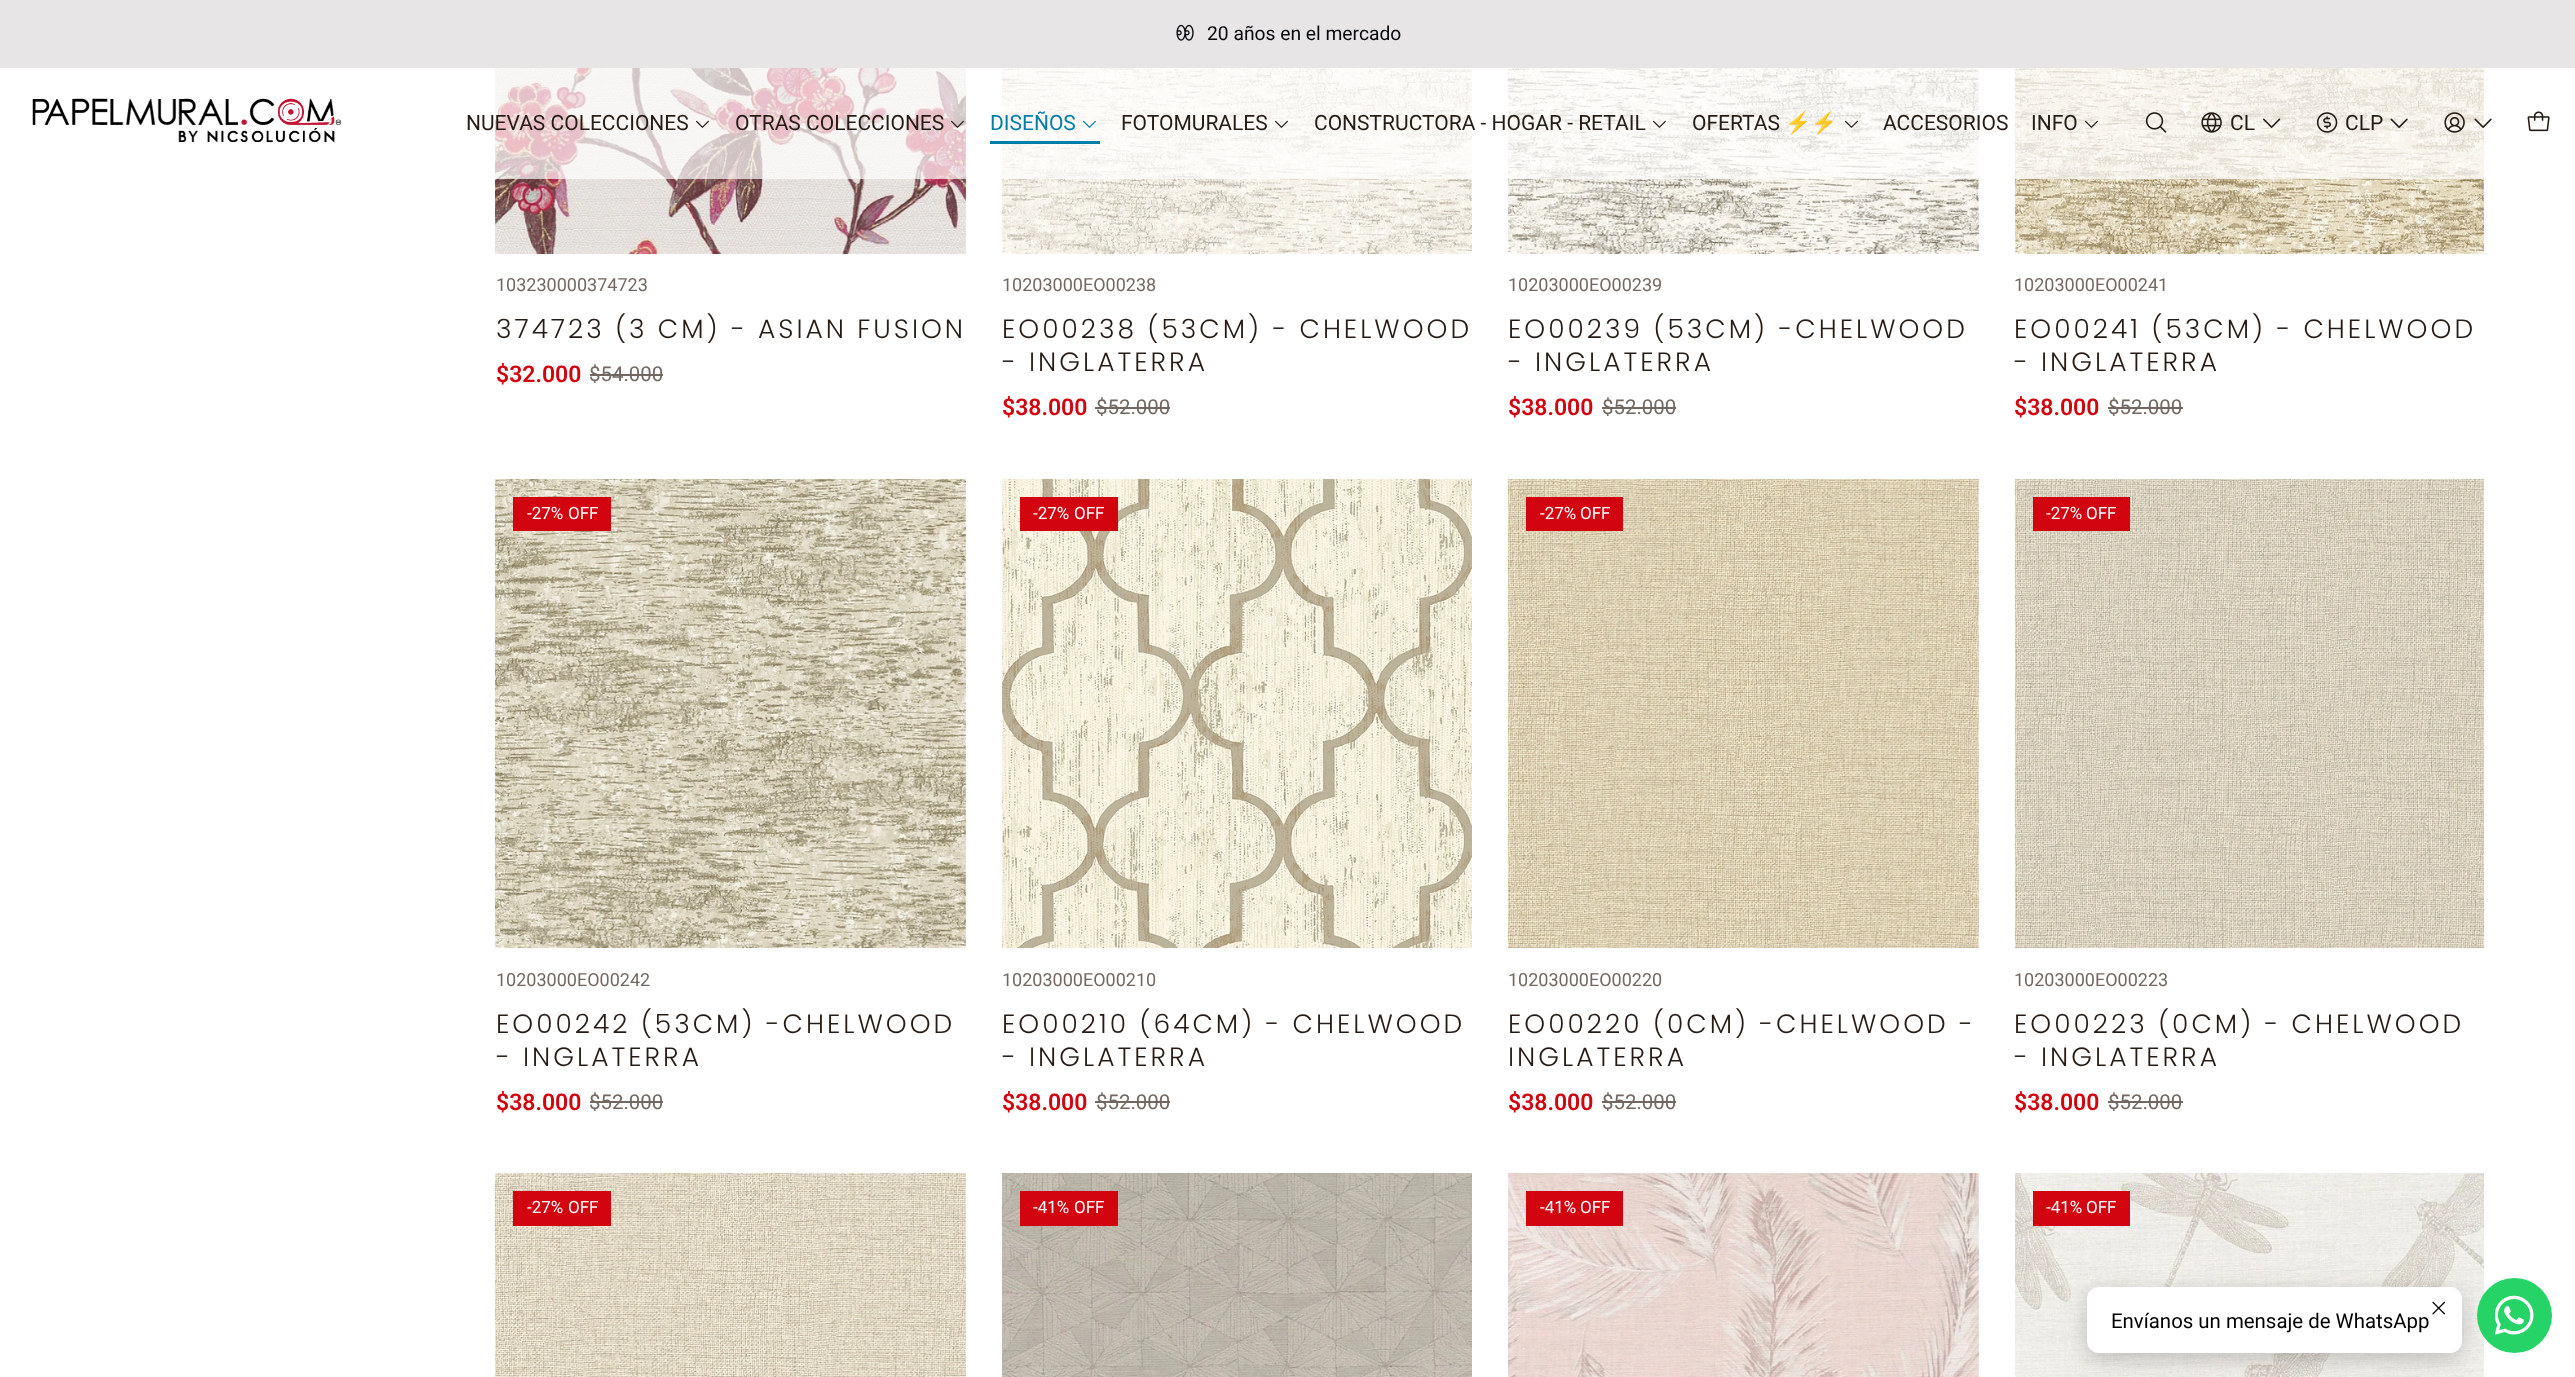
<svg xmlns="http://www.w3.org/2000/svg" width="2575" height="1377">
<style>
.a{font:19.25px Roboto;fill:#06080b}
.b{font:21px Roboto;fill:#261c15}
.c{font:21px Roboto;fill:#007ea7}
.d{font:21px Noto Color Emoji;fill:#261c15}
.e{font:18px Roboto;fill:#726861}
.f{font:300 26.5px Poppins;letter-spacing:3px;fill:#261c15}
.g{font:600 23px Roboto;fill:#d2040f}
.h{font:20.4px Roboto;fill:#726861}
.i{font:17px Roboto;fill:#fff}
.j{font:20.4px Roboto;fill:#000}
</style>
<rect width="100%" height="100%" fill="#fff"/>
<path fill="#e8e5e6" d="M0 0h2575v68H0z"/>
<image href="1.png" x="1176" y="24" width="18" height="17"/>
<image href="18.png" x="495" y="68" width="471" height="186"/>
<image href="19.png" x="1002" y="68" width="470" height="186"/>
<image href="20.png" x="1508" y="68" width="471" height="186"/>
<image href="21.png" x="2015" y="68" width="469" height="186"/>
<path fill="#ffffffb3" d="M495 68h1989v111H495z"/>
<image href="2.png" x="32" y="98" width="310" height="45"/>
<image href="3.png" x="696" y="120" width="13" height="8"/>
<image href="4.png" x="951" y="120" width="13" height="8"/>
<image href="5.png" x="1083" y="120" width="13" height="8"/>
<path fill="#007ea7" d="M990 141h110v3H990z"/>
<image href="6.png" x="1275" y="120" width="13" height="8"/>
<image href="7.png" x="1653" y="120" width="13" height="8"/>
<image href="8.png" x="1845" y="120" width="13" height="8"/>
<image href="9.png" x="2085" y="120" width="13" height="8"/>
<image href="10.png" x="2145" y="112" width="22" height="21"/>
<image href="11.png" x="2201" y="112" width="21" height="21"/>
<image href="12.png" x="2263" y="118" width="18" height="10"/>
<image href="13.png" x="2316" y="112" width="22" height="21"/>
<image href="14.png" x="2390" y="118" width="18" height="10"/>
<image href="15.png" x="2444" y="112" width="21" height="21"/>
<image href="16.png" x="2474" y="118" width="18" height="10"/>
<image href="17.png" x="2527" y="111" width="23" height="21"/>
<path fill="#726861" d="M590 374h73v2H590z"/>
<path fill="#726861" d="M1095 407h75v2H1095z"/>
<path fill="#726861" d="M1602 407h74v2H1602z"/>
<path fill="#726861" d="M2108 407h75v2H2108z"/>
<image href="22.png" x="495" y="479" width="471" height="469"/>
<path fill="#d2040f" d="M513 497h98v34H513z"/>
<path fill="#726861" d="M590 1101h73v2H590z"/>
<image href="23.png" x="1002" y="479" width="470" height="469"/>
<path fill="#d2040f" d="M1020 497h98v34H1020z"/>
<path fill="#726861" d="M1095 1101h75v2H1095z"/>
<image href="24.png" x="1508" y="479" width="471" height="469"/>
<path fill="#d2040f" d="M1526 497h97v34H1526z"/>
<path fill="#726861" d="M1602 1101h74v2H1602z"/>
<image href="25.png" x="2015" y="479" width="469" height="469"/>
<path fill="#d2040f" d="M2033 497h97v34H2033z"/>
<path fill="#726861" d="M2108 1101h75v2H2108z"/>
<image href="26.png" x="495" y="1173" width="471" height="204"/>
<path fill="#d2040f" d="M513 1191h98v35H513z"/>
<image href="27.png" x="1002" y="1173" width="470" height="204"/>
<path fill="#d2040f" d="M1020 1191h98v35H1020z"/>
<image href="28.png" x="1508" y="1173" width="471" height="204"/>
<path fill="#d2040f" d="M1526 1191h97v35H1526z"/>
<image href="29.png" x="2015" y="1173" width="469" height="204"/>
<path fill="#d2040f" d="M2033 1191h97v35H2033z"/>
<rect fill="#00000033" filter="blur(11px)" x="2087" y="1293" width="375" height="66" rx="12"/>
<rect fill="#fff" x="2087" y="1287" width="375" height="66" rx="12"/>
<image href="30.png" x="2432" y="1301" width="13" height="14"/>
<circle fill="#25d366" cx="2514.5" cy="1315.5" r="37.5"/>
<image href="31.png" x="2495" y="1295" width="39" height="40"/>
<text class="a" x="1207" y="40">20 años en el mercado</text>
<text class="b" x="466" y="130">NUEVAS COLECCIONES</text>
<text class="b" x="735" y="130">OTRAS COLECCIONES</text>
<text class="c" x="990" y="130">DISEÑOS</text>
<text class="b" x="1121" y="130">FOTOMURALES</text>
<text class="b" x="1314" y="130">CONSTRUCTORA - HOGAR - RETAIL</text>
<text class="b" x="1692" y="130">OFERTAS</text>
<text class="d" x="1785" y="130">⚡️⚡️</text>
<text class="b" x="1883" y="130">ACCESORIOS</text>
<text class="b" x="2031" y="130">INFO</text>
<text class="b" x="2230" y="130">CL</text>
<text class="b" x="2345" y="130">CLP</text>
<text class="e" x="496" y="291">103230000374723</text>
<text class="f" x="496" y="338">374723 (3 CM) - ASIAN FUSION</text>
<text class="g" x="496" y="382">$32.000</text>
<text class="h" x="589" y="381">$54.000</text>
<text class="e" x="1002" y="291">10203000EO00238</text>
<text class="f" x="1002" y="338">EO00238 (53CM) - CHELWOOD</text>
<text class="f" x="1002" y="371">- INGLATERRA</text>
<text class="g" x="1002" y="415">$38.000</text>
<text class="h" x="1096" y="414">$52.000</text>
<text class="e" x="1508" y="291">10203000EO00239</text>
<text class="f" x="1508" y="338">EO00239 (53CM) -CHELWOOD</text>
<text class="f" x="1508" y="371">- INGLATERRA</text>
<text class="g" x="1508" y="415">$38.000</text>
<text class="h" x="1602" y="414">$52.000</text>
<text class="e" x="2014" y="291">10203000EO00241</text>
<text class="f" x="2014" y="338">EO00241 (53CM) - CHELWOOD</text>
<text class="f" x="2014" y="371">- INGLATERRA</text>
<text class="g" x="2014" y="415">$38.000</text>
<text class="h" x="2108" y="414">$52.000</text>
<text class="i" x="527" y="519">-27%</text>
<text class="i" x="568" y="519">OFF</text>
<text class="e" x="496" y="986">10203000EO00242</text>
<text class="f" x="496" y="1033">EO00242 (53CM) -CHELWOOD</text>
<text class="f" x="496" y="1066">- INGLATERRA</text>
<text class="g" x="496" y="1110">$38.000</text>
<text class="h" x="589" y="1109">$52.000</text>
<text class="i" x="1033" y="519">-27%</text>
<text class="i" x="1074" y="519">OFF</text>
<text class="e" x="1002" y="986">10203000EO00210</text>
<text class="f" x="1002" y="1033">EO00210 (64CM) - CHELWOOD</text>
<text class="f" x="1002" y="1066">- INGLATERRA</text>
<text class="g" x="1002" y="1110">$38.000</text>
<text class="h" x="1096" y="1109">$52.000</text>
<text class="i" x="1540" y="519">-27%</text>
<text class="i" x="1580" y="519">OFF</text>
<text class="e" x="1508" y="986">10203000EO00220</text>
<text class="f" x="1508" y="1033">EO00220 (0CM) -CHELWOOD -</text>
<text class="f" x="1508" y="1066">INGLATERRA</text>
<text class="g" x="1508" y="1110">$38.000</text>
<text class="h" x="1602" y="1109">$52.000</text>
<text class="i" x="2046" y="519">-27%</text>
<text class="i" x="2086" y="519">OFF</text>
<text class="e" x="2014" y="986">10203000EO00223</text>
<text class="f" x="2014" y="1033">EO00223 (0CM) - CHELWOOD</text>
<text class="f" x="2014" y="1066">- INGLATERRA</text>
<text class="g" x="2014" y="1110">$38.000</text>
<text class="h" x="2108" y="1109">$52.000</text>
<text class="i" x="527" y="1213">-27%</text>
<text class="i" x="568" y="1213">OFF</text>
<text class="i" x="1033" y="1213">-41%</text>
<text class="i" x="1074" y="1213">OFF</text>
<text class="i" x="1540" y="1213">-41%</text>
<text class="i" x="1580" y="1213">OFF</text>
<text class="i" x="2046" y="1213">-41%</text>
<text class="i" x="2086" y="1213">OFF</text>
<text class="j" x="2111" y="1328">Envíanos un mensaje de WhatsApp</text>
</svg>
